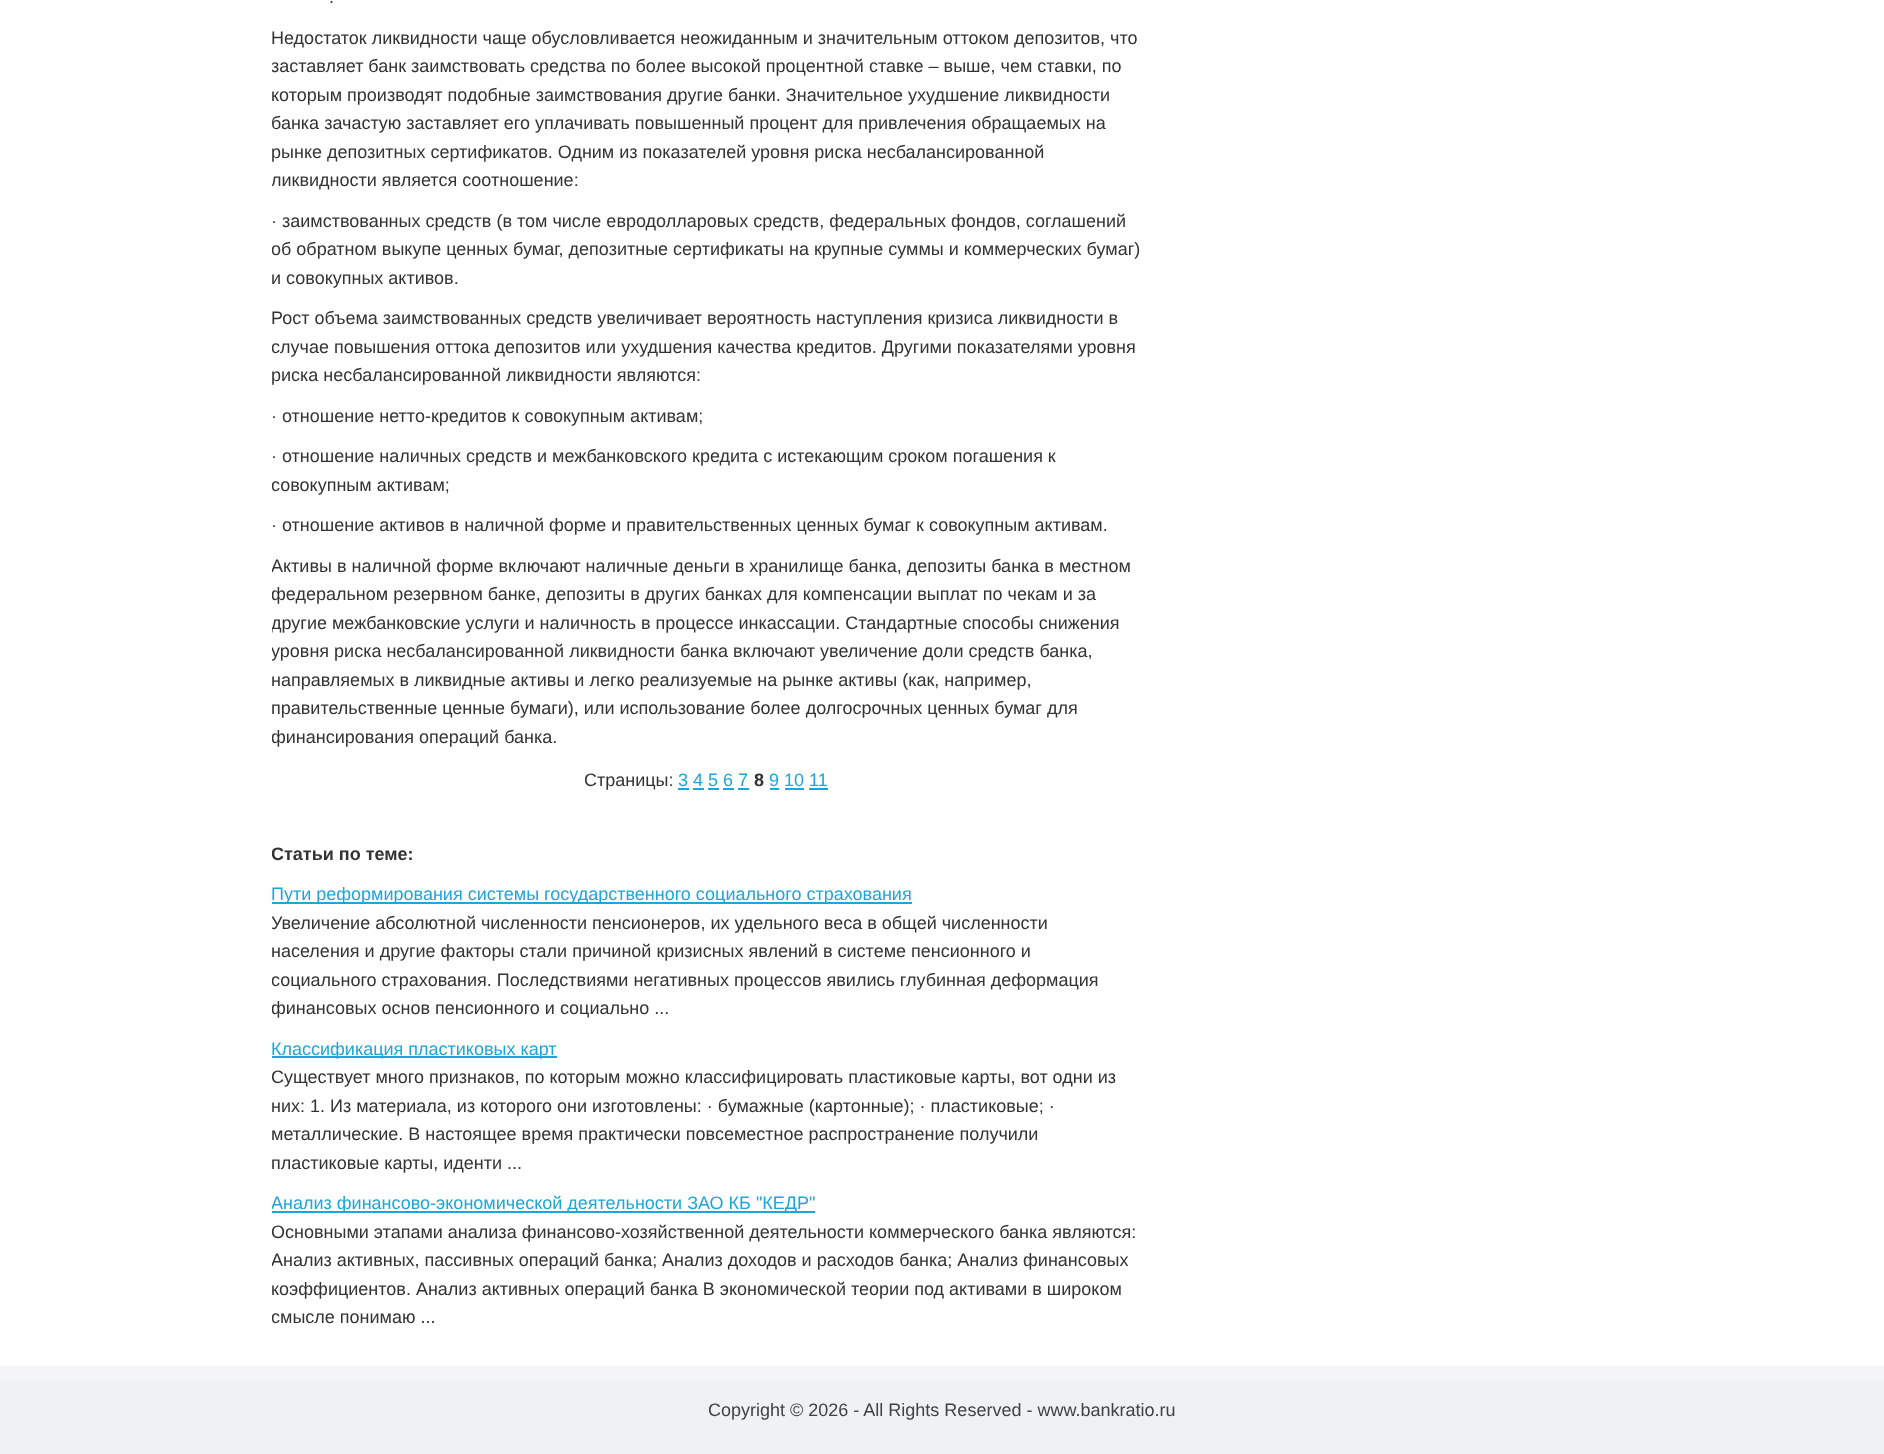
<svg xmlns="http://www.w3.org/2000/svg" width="1884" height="1454">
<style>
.a{font:18px Liberation Sans;fill:#333}
.b{font:18px Liberation Sans;fill:#1ca6db}
.c{font:bold 18px Liberation Sans;fill:#333}
.d{font:18px Liberation Sans;fill:#434141}
</style>
<defs>
<clipPath id="clip1"><path d="M272 0h870v1344H272z"/></clipPath>
</defs>
<rect width="100%" height="100%" fill="#fff"/>
<path fill="#1ca6db" d="M678 788h11v2H678z"/>
<path fill="#1ca6db" d="M770 788h9v2H770z"/>
<path fill="#1ca6db" d="M693 788h11v2H693z"/>
<path fill="#1ca6db" d="M708 788h11v2H708z"/>
<path fill="#1ca6db" d="M723 788h11v2H723z"/>
<path fill="#1ca6db" d="M738 788h11v2H738z"/>
<path fill="#1ca6db" d="M785 788h19v2H785z"/>
<path fill="#1ca6db" d="M809 788h19v2H809z"/>
<path fill="#1ca6db" d="M272 902h640v2H272z"/>
<path fill="#1ca6db" d="M272 1056h285v2H272z"/>
<path fill="#1ca6db" d="M272 1211h543v2H272z"/>
<path fill="#f0f1f5" d="M0 1381h1884v73H0z"/>
<path fill="#f5f5f8" d="M0 1366h1884v15H0z"/>
<text class="a" x="329" y="3">.</text>
<text class="a" x="271" y="44">Недостаток ликвидности чаще обусловливается неожиданным и значительным оттоком депозитов, что</text>
<g clip-path="url(#clip1)">
<text class="a" x="271" y="72">заставляет банк заимствовать средства по более высокой процентной ставке – выше, чем ставки, по</text>
</g>
<text class="a" x="271" y="101">которым производят подобные заимствования другие банки. Значительное ухудшение ликвидности</text>
<g clip-path="url(#clip1)">
<text class="a" x="271" y="129">банка зачастую заставляет его уплачивать повышенный процент для привлечения обращаемых на</text>
</g>
<text class="a" x="271" y="158">рынке депозитных сертификатов. Одним из показателей уровня риска несбалансированной</text>
<g clip-path="url(#clip1)">
<text class="a" x="271" y="186">ликвидности является соотношение:</text>
</g>
<text class="a" x="271" y="227">· заимствованных средств (в том числе евродолларовых средств, федеральных фондов, соглашений</text>
<g clip-path="url(#clip1)">
<text class="a" x="271" y="255">об обратном выкупе ценных бумаг, депозитные сертификаты на крупные суммы и коммерческих бумаг)</text>
</g>
<text class="a" x="271" y="284">и совокупных активов.</text>
<text class="a" x="271" y="324">Рост объема заимствованных средств увеличивает вероятность наступления кризиса ликвидности в</text>
<g clip-path="url(#clip1)">
<text class="a" x="271" y="353">случае повышения оттока депозитов или ухудшения качества кредитов. Другими показателями уровня</text>
</g>
<text class="a" x="271" y="381">риска несбалансированной ликвидности являются:</text>
<text class="a" x="271" y="422">· отношение нетто-кредитов к совокупным активам;</text>
<text class="a" x="271" y="462">· отношение наличных средств и межбанковского кредита с истекающим сроком погашения к</text>
<g clip-path="url(#clip1)">
<text class="a" x="271" y="491">совокупным активам;</text>
</g>
<text class="a" x="271" y="531">· отношение активов в наличной форме и правительственных ценных бумаг к совокупным активам.</text>
<g clip-path="url(#clip1)">
<text class="a" x="271" y="572">Активы в наличной форме включают наличные деньги в хранилище банка, депозиты банка в местном</text>
<text class="a" x="271" y="600">федеральном резервном банке, депозиты в других банках для компенсации выплат по чекам и за</text>
<text class="a" x="271" y="629">другие межбанковские услуги и наличность в процессе инкассации. Стандартные способы снижения</text>
<text class="a" x="271" y="657">уровня риска несбалансированной ликвидности банка включают увеличение доли средств банка,</text>
</g>
<text class="a" x="271" y="686">направляемых в ликвидные активы и легко реализуемые на рынке активы (как, например,</text>
<text class="a" x="271" y="714">правительственные ценные бумаги), или использование более долгосрочных ценных бумаг для</text>
<g clip-path="url(#clip1)">
<text class="a" x="271" y="743">финансирования операций банка.</text>
</g>
<text class="a" x="584" y="786">Страницы:</text>
<text class="b" x="678" y="786">3 4 5 6 7</text>
<text class="c" x="754" y="786">8</text>
<text class="b" x="769" y="786">9 10 11</text>
<g clip-path="url(#clip1)">
<text class="c" x="271" y="860">Статьи по теме:</text>
</g>
<text class="b" x="271" y="900">Пути реформирования системы государственного социального страхования</text>
<g clip-path="url(#clip1)">
<text class="a" x="271" y="929">Увеличение абсолютной численности пенсионеров, их удельного веса в общей численности</text>
</g>
<text class="a" x="271" y="957">населения и другие факторы стали причиной кризисных явлений в системе пенсионного и</text>
<g clip-path="url(#clip1)">
<text class="a" x="271" y="986">социального страхования. Последствиями негативных процессов явились глубинная деформация</text>
<text class="a" x="271" y="1014">финансовых основ пенсионного и социально ...</text>
</g>
<text class="b" x="271" y="1055">Классификация пластиковых карт</text>
<g clip-path="url(#clip1)">
<text class="a" x="271" y="1083">Существует много признаков, по которым можно классифицировать пластиковые карты, вот одни из</text>
</g>
<text class="a" x="271" y="1112">них: 1. Из материала, из которого они изготовлены: · бумажные (картонные); · пластиковые; ·</text>
<text class="a" x="271" y="1140">металлические. В настоящее время практически повсеместное распространение получили</text>
<text class="a" x="271" y="1169">пластиковые карты, иденти ...</text>
<g clip-path="url(#clip1)">
<text class="b" x="271" y="1209">Анализ финансово-экономической деятельности ЗАО КБ "КЕДР"</text>
<text class="a" x="271" y="1238">Основными этапами анализа финансово-хозяйственной деятельности коммерческого банка являются:</text>
<text class="a" x="271" y="1266">Анализ активных, пассивных операций банка;</text>
</g>
<text class="a" x="662" y="1266">Анализ доходов и расходов банка; Анализ финансовых</text>
<text class="a" x="271" y="1295">коэффициентов. Анализ активных операций банка В экономической теории под активами в широком</text>
<g clip-path="url(#clip1)">
<text class="a" x="271" y="1323">смысле понимаю ...</text>
</g>
<text class="d" x="708" y="1416">Copyright © 2026 - All Rights Reserved - www.bankratio.ru</text>
</svg>
